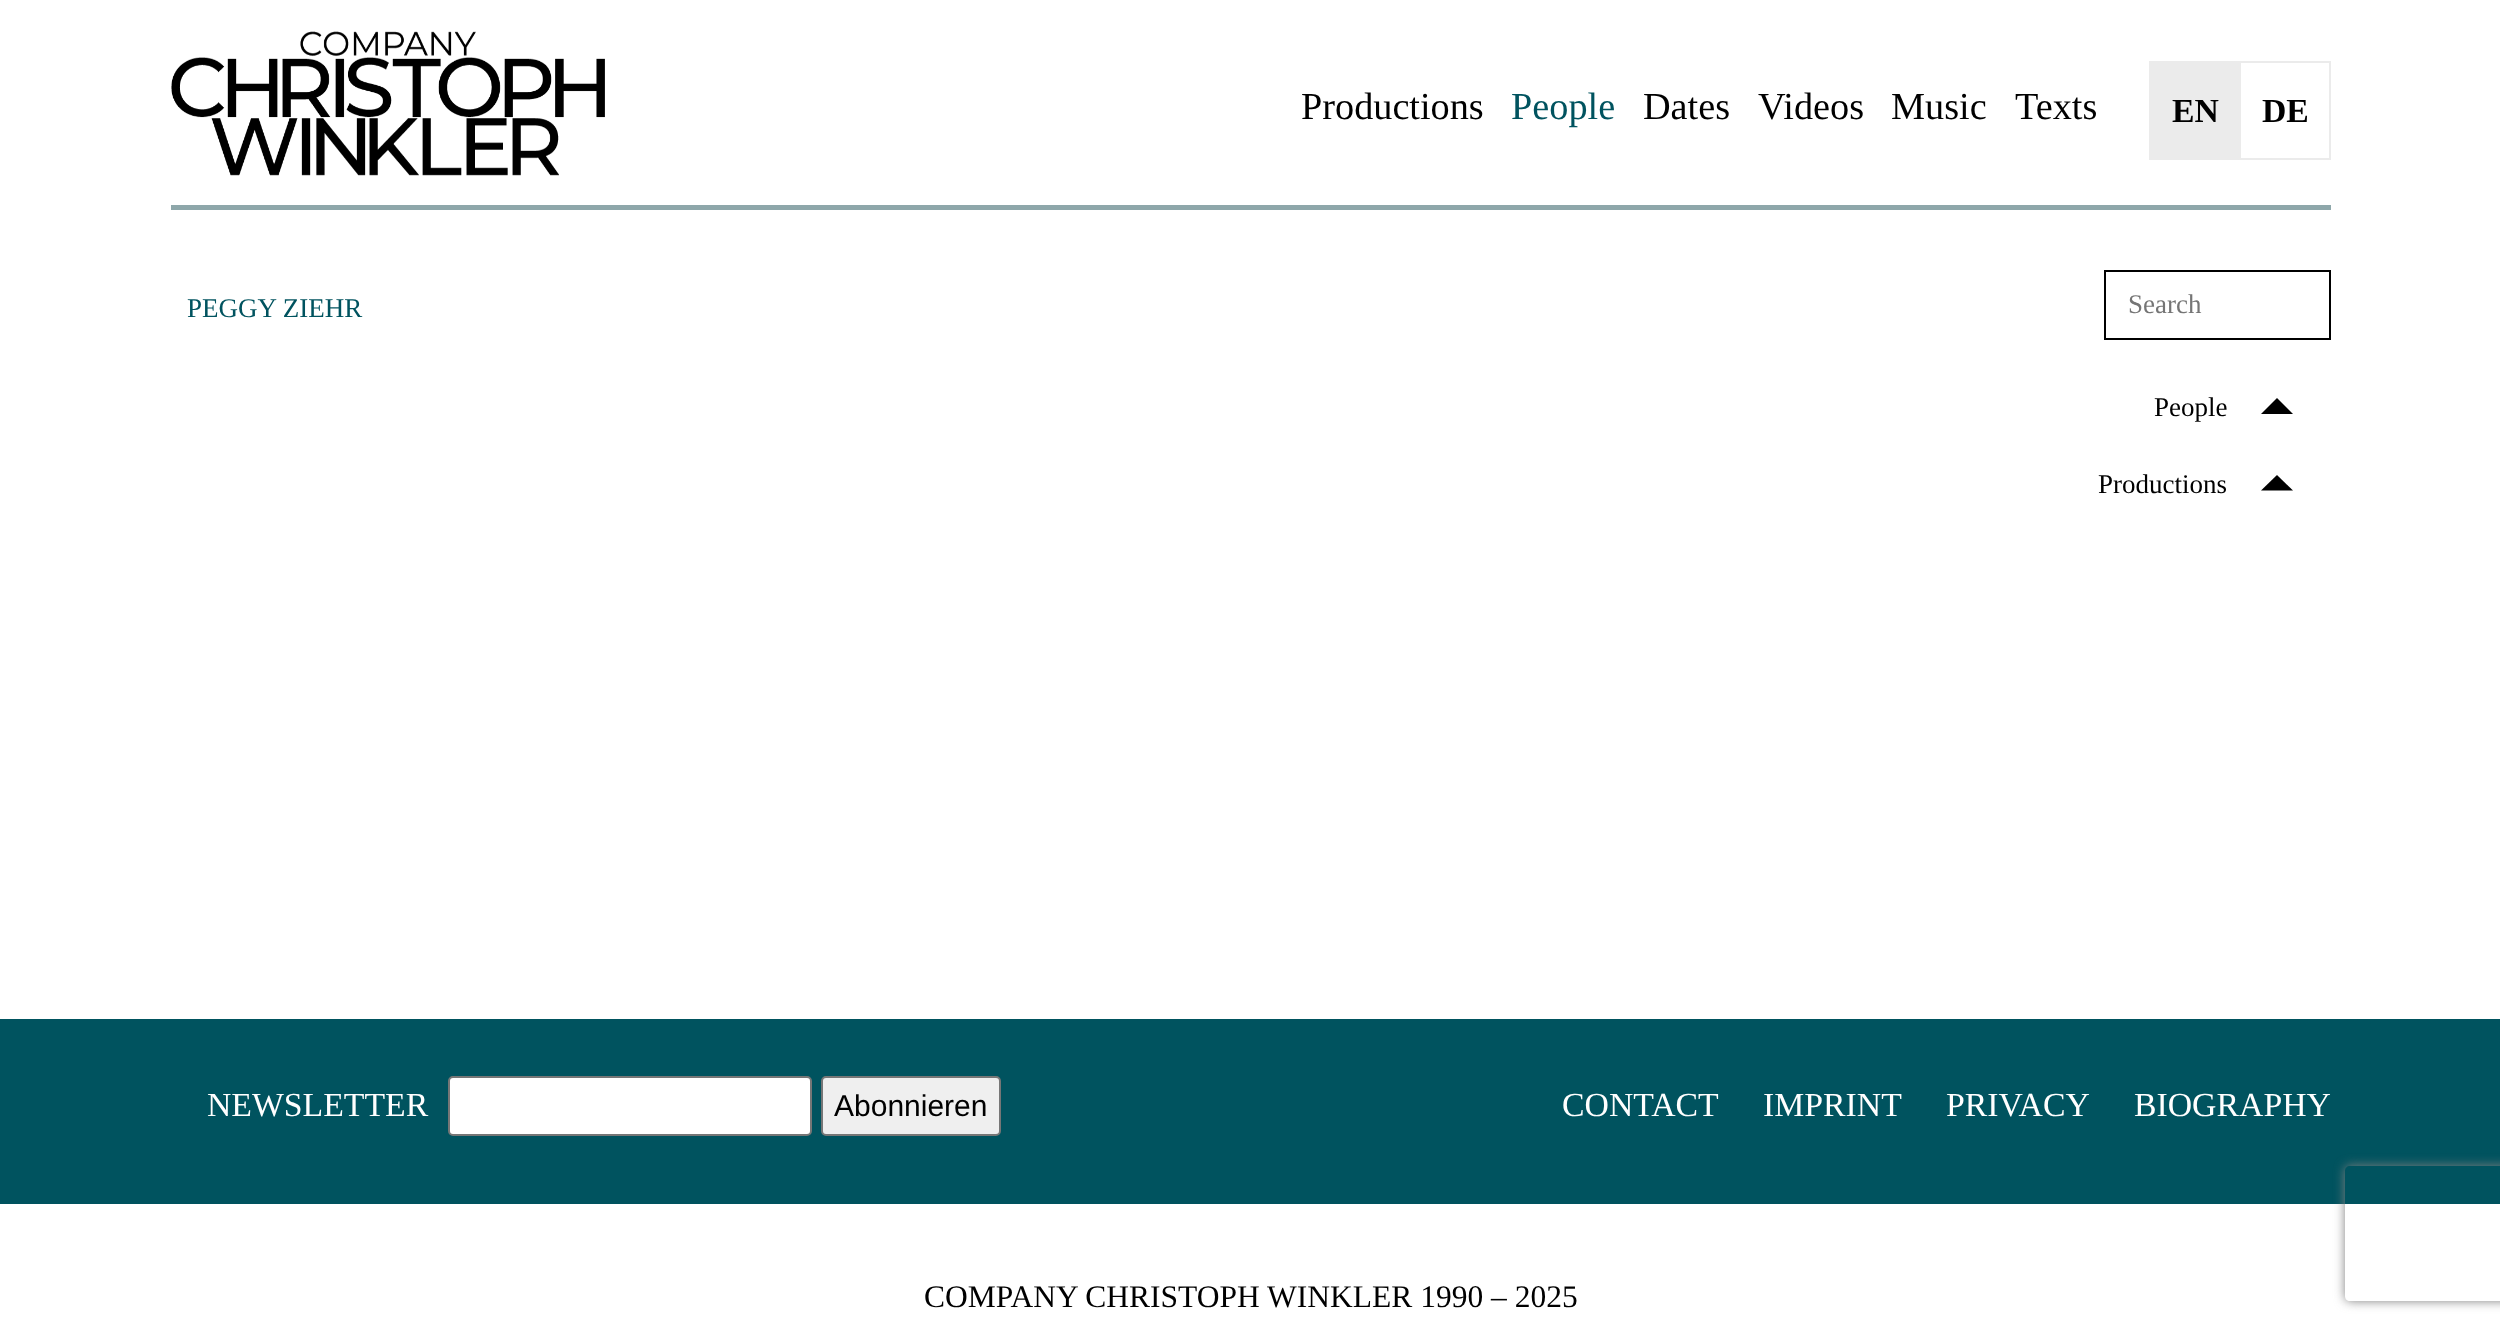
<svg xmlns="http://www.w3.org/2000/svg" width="2500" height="1332">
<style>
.a{font:38.25px Liberation Serif;fill:#000}
.b{font:38.25px Liberation Serif;fill:#00535f}
.c{font:bold 33.75px Liberation Serif;fill:#000}
.d{font:27px Liberation Serif;fill:#00535f}
.e{font:27px Liberation Serif;fill:#757575}
.f{font:27px Liberation Serif;fill:#000}
.g{font:33.75px Liberation Serif;fill:#fff}
.h{font:30px Liberation Sans;fill:#000}
.i{font:31.5px Liberation Serif;fill:#000}
</style>
<defs>
<clipPath id="clip1"><path d="M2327 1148h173v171h-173zm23 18h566c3 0 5 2 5 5v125c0 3-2 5-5 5h-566c-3 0-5-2-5-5v-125c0-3 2-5 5-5z" clip-rule="evenodd"/></clipPath>
</defs>
<rect width="100%" height="100%" fill="#fff"/>
<path fill="#8ea7aa" d="M171 205h2160v5H171z"/>
<image href="1.png" x="171" y="31" width="434" height="145"/>
<path fill="#ebebeb" d="M2149 61h92v99H2149z"/>
<path fill="#ebebeb" d="M2241 61h90v2H2241z"/>
<path fill="#ebebeb" d="M2329 61h2v99H2329z"/>
<path fill="#ebebeb" d="M2241 158h90v2H2241z"/>
<path fill="none" stroke="#000" stroke-width="2" d="M2105 271h225v68H2105z"/>
<path fill="#000" d="M2293 414h-32l16-16z"/>
<path fill="#000" d="M2293 490.5h-32l16-15.5z"/>
<path fill="#00535f" d="M0 1019h2500v185H0z"/>
<rect fill="#fff" stroke="#767676" stroke-width="2" x="449" y="1077" width="362" height="58" rx="4"/>
<rect fill="#efefef" stroke="#767676" stroke-width="2" x="822" y="1077" width="178" height="58" rx="4"/>
<g clip-path="url(#clip1)">
<rect fill="#808080" filter="blur(5.5px)" x="2345" y="1166" width="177" height="135" rx="5"/>
</g>
<text class="a" x="1301" y="119">Productions</text>
<text class="b" x="1511" y="119">People</text>
<text class="a" x="1643" y="119">Dates</text>
<text class="a" x="1758" y="119">Videos</text>
<text class="a" x="1891" y="119">Music</text>
<text class="a" x="2015" y="119">Texts</text>
<text class="c" x="2172" y="122">EN</text>
<text class="c" x="2262" y="122">DE</text>
<text class="d" x="187" y="317">PEGGY ZIEHR</text>
<text class="e" x="2128" y="313">Search</text>
<text class="f" x="2154" y="416">People</text>
<text class="f" x="2098" y="493">Productions</text>
<text class="g" x="207" y="1116">NEWSLETTER</text>
<text class="h" x="834" y="1116">Abonnieren</text>
<text class="g" x="1562" y="1116">CONTACT</text>
<text class="g" x="1763" y="1116">IMPRINT</text>
<text class="g" x="1946" y="1116">PRIVACY</text>
<text class="g" x="2134" y="1116">BIOGRAPHY</text>
<text class="i" x="924" y="1307">COMPANY CHRISTOPH WINKLER 1990 – 2025</text>
</svg>
